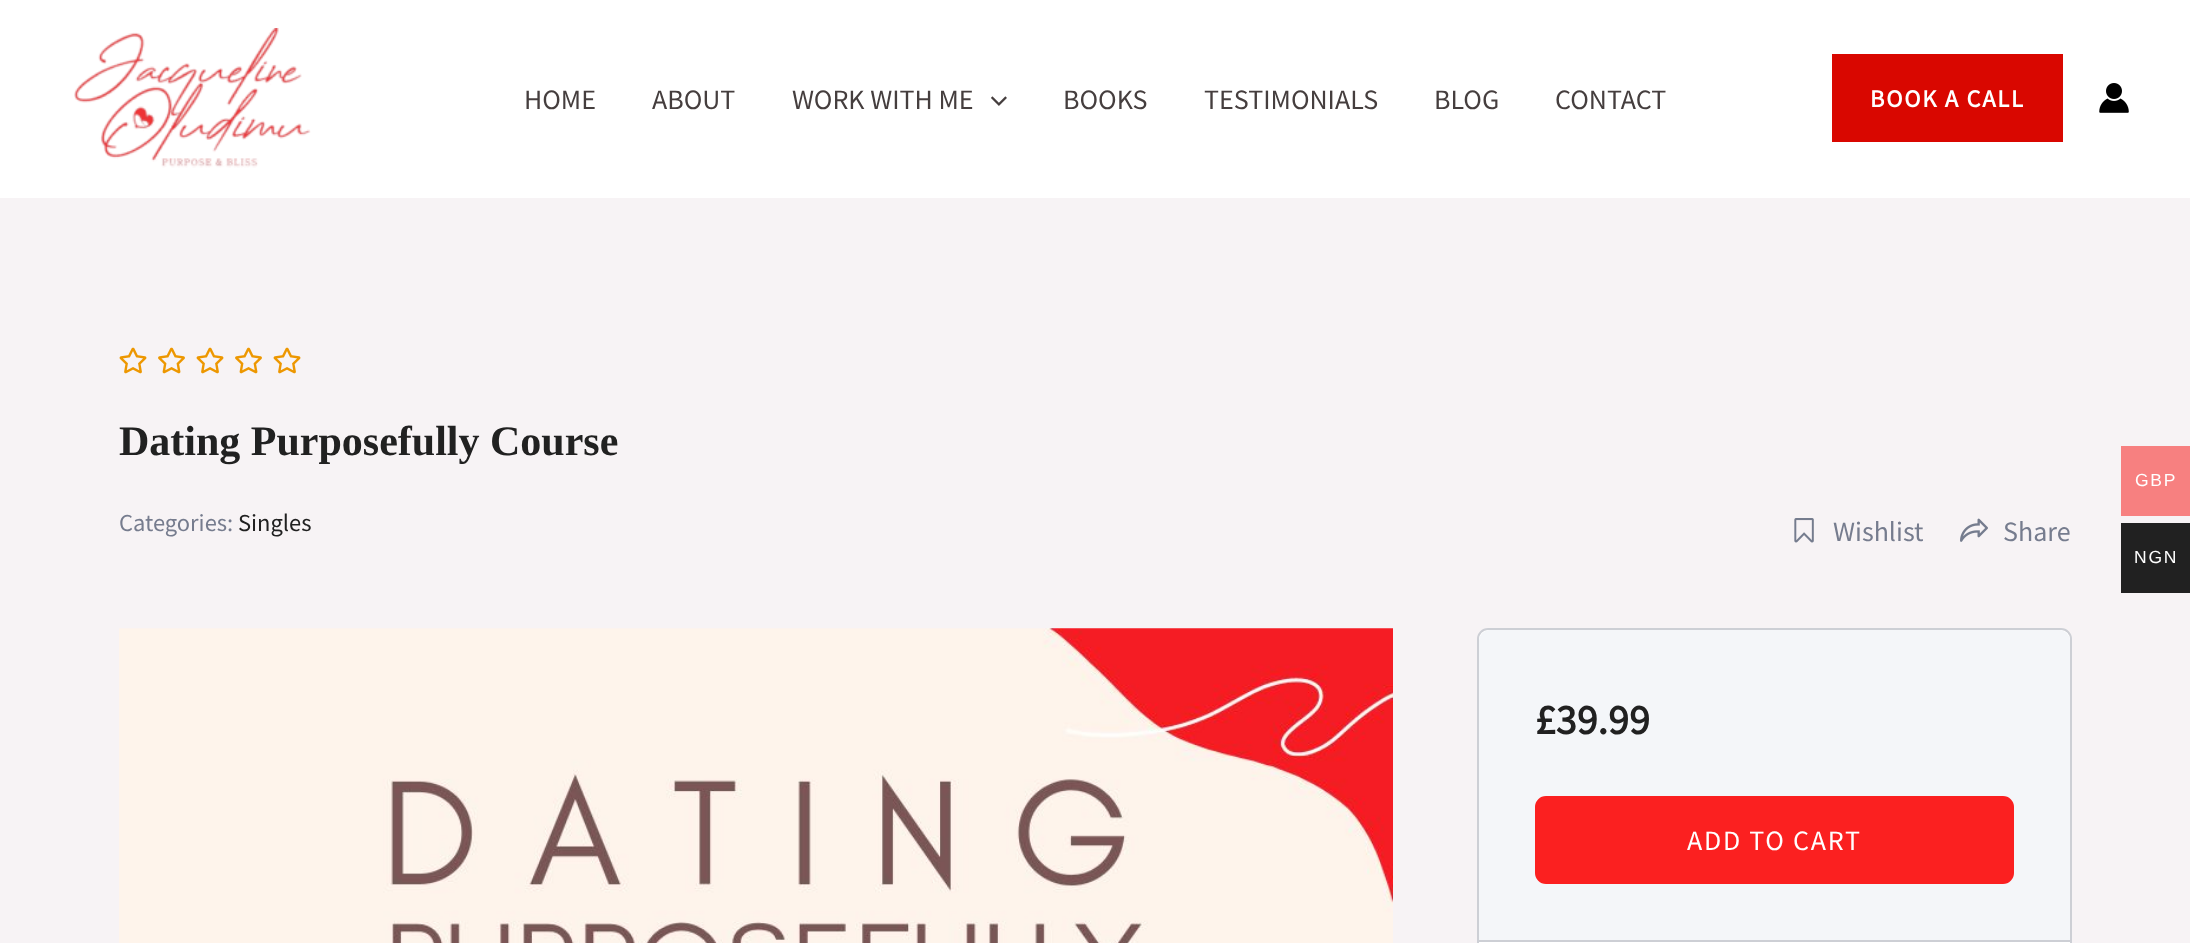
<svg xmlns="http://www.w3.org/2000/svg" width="2190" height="943">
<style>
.a{font:28px Source Sans Pro;fill:#453e3e}
.b{font:bold 24.5px Source Sans Pro;letter-spacing:1.75px;fill:#fff}
.c{font:bold 42px Liberation Serif;fill:#212121}
.d{font:24.5px Source Sans Pro;fill:#767c8e}
.e{font:24.5px Source Sans Pro;fill:#212121}
.f{font:28px Source Sans Pro;fill:#767c8e}
.g{font:bold 42px Source Sans Pro;fill:#212121}
.h{font:28px Source Sans Pro;letter-spacing:1.75px;fill:#fff}
.i{font:17.5px Liberation Sans;letter-spacing:1.75px;fill:#fff}
</style>
<rect width="100%" height="100%" fill="#f7f3f5"/>
<path fill="#fff" d="M0 0h2190v198H0z"/>
<image href="1.png" x="74" y="28" width="237" height="140"/>
<image href="2.png" x="991" y="96" width="16" height="10"/>
<path fill="#d90700" d="M1832 54h231v88H1832z"/>
<image href="3.png" x="2099" y="83" width="30" height="30"/>
<image href="4.png" x="119" y="347" width="28" height="27"/>
<image href="5.png" x="158" y="347" width="27" height="27"/>
<image href="4.png" x="196" y="347" width="28" height="27"/>
<image href="5.png" x="235" y="347" width="27" height="27"/>
<image href="4.png" x="273" y="347" width="28" height="27"/>
<image href="6.png" x="1794" y="518" width="20" height="25"/>
<image href="7.png" x="1960" y="518" width="28" height="24"/>
<image href="8.png" x="119" y="628" width="1274" height="315"/>
<rect fill="#fff" stroke="#cdcfd5" stroke-width="2" x="1478" y="629" width="593" height="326" rx="10"/>
<path fill="#f4f6f9" d="M1490 630h569c6 0 11 5 11 11v299h-591v-299c0-6 5-11 11-11z"/>
<rect fill="#fb2020" stroke="#fb2020" stroke-width="2" x="1536" y="797" width="477" height="86" rx="10"/>
<path fill="#cdcfd5" d="M1479 940h591v2H1479z"/>
<path fill="#f78080" d="M2121 446h69v70H2121z"/>
<path fill="#212121" d="M2121 523h69v70H2121z"/>
<text class="a" x="524" y="109">HOME</text>
<text class="a" x="652" y="109">ABOUT</text>
<text class="a" x="792" y="109">WORK WITH ME</text>
<text class="a" x="1063" y="109">BOOKS</text>
<text class="a" x="1204" y="109">TESTIMONIALS</text>
<text class="a" x="1434" y="109">BLOG</text>
<text class="a" x="1555" y="109">CONTACT</text>
<text class="b" x="1870" y="107">BOOK A CALL</text>
<text class="c" x="119" y="455">Dating Purposefully Course</text>
<text class="d" x="119" y="531">Categories:</text>
<text class="e" x="238" y="531">Singles</text>
<text class="f" x="1833" y="541">Wishlist</text>
<text class="f" x="2003" y="541">Share</text>
<text class="g" x="1535" y="734">£39.99</text>
<text class="h" x="1687" y="850">ADD TO CART</text>
<text class="i" x="2135" y="486">GBP</text>
<text class="i" x="2134" y="563">NGN</text>
</svg>
